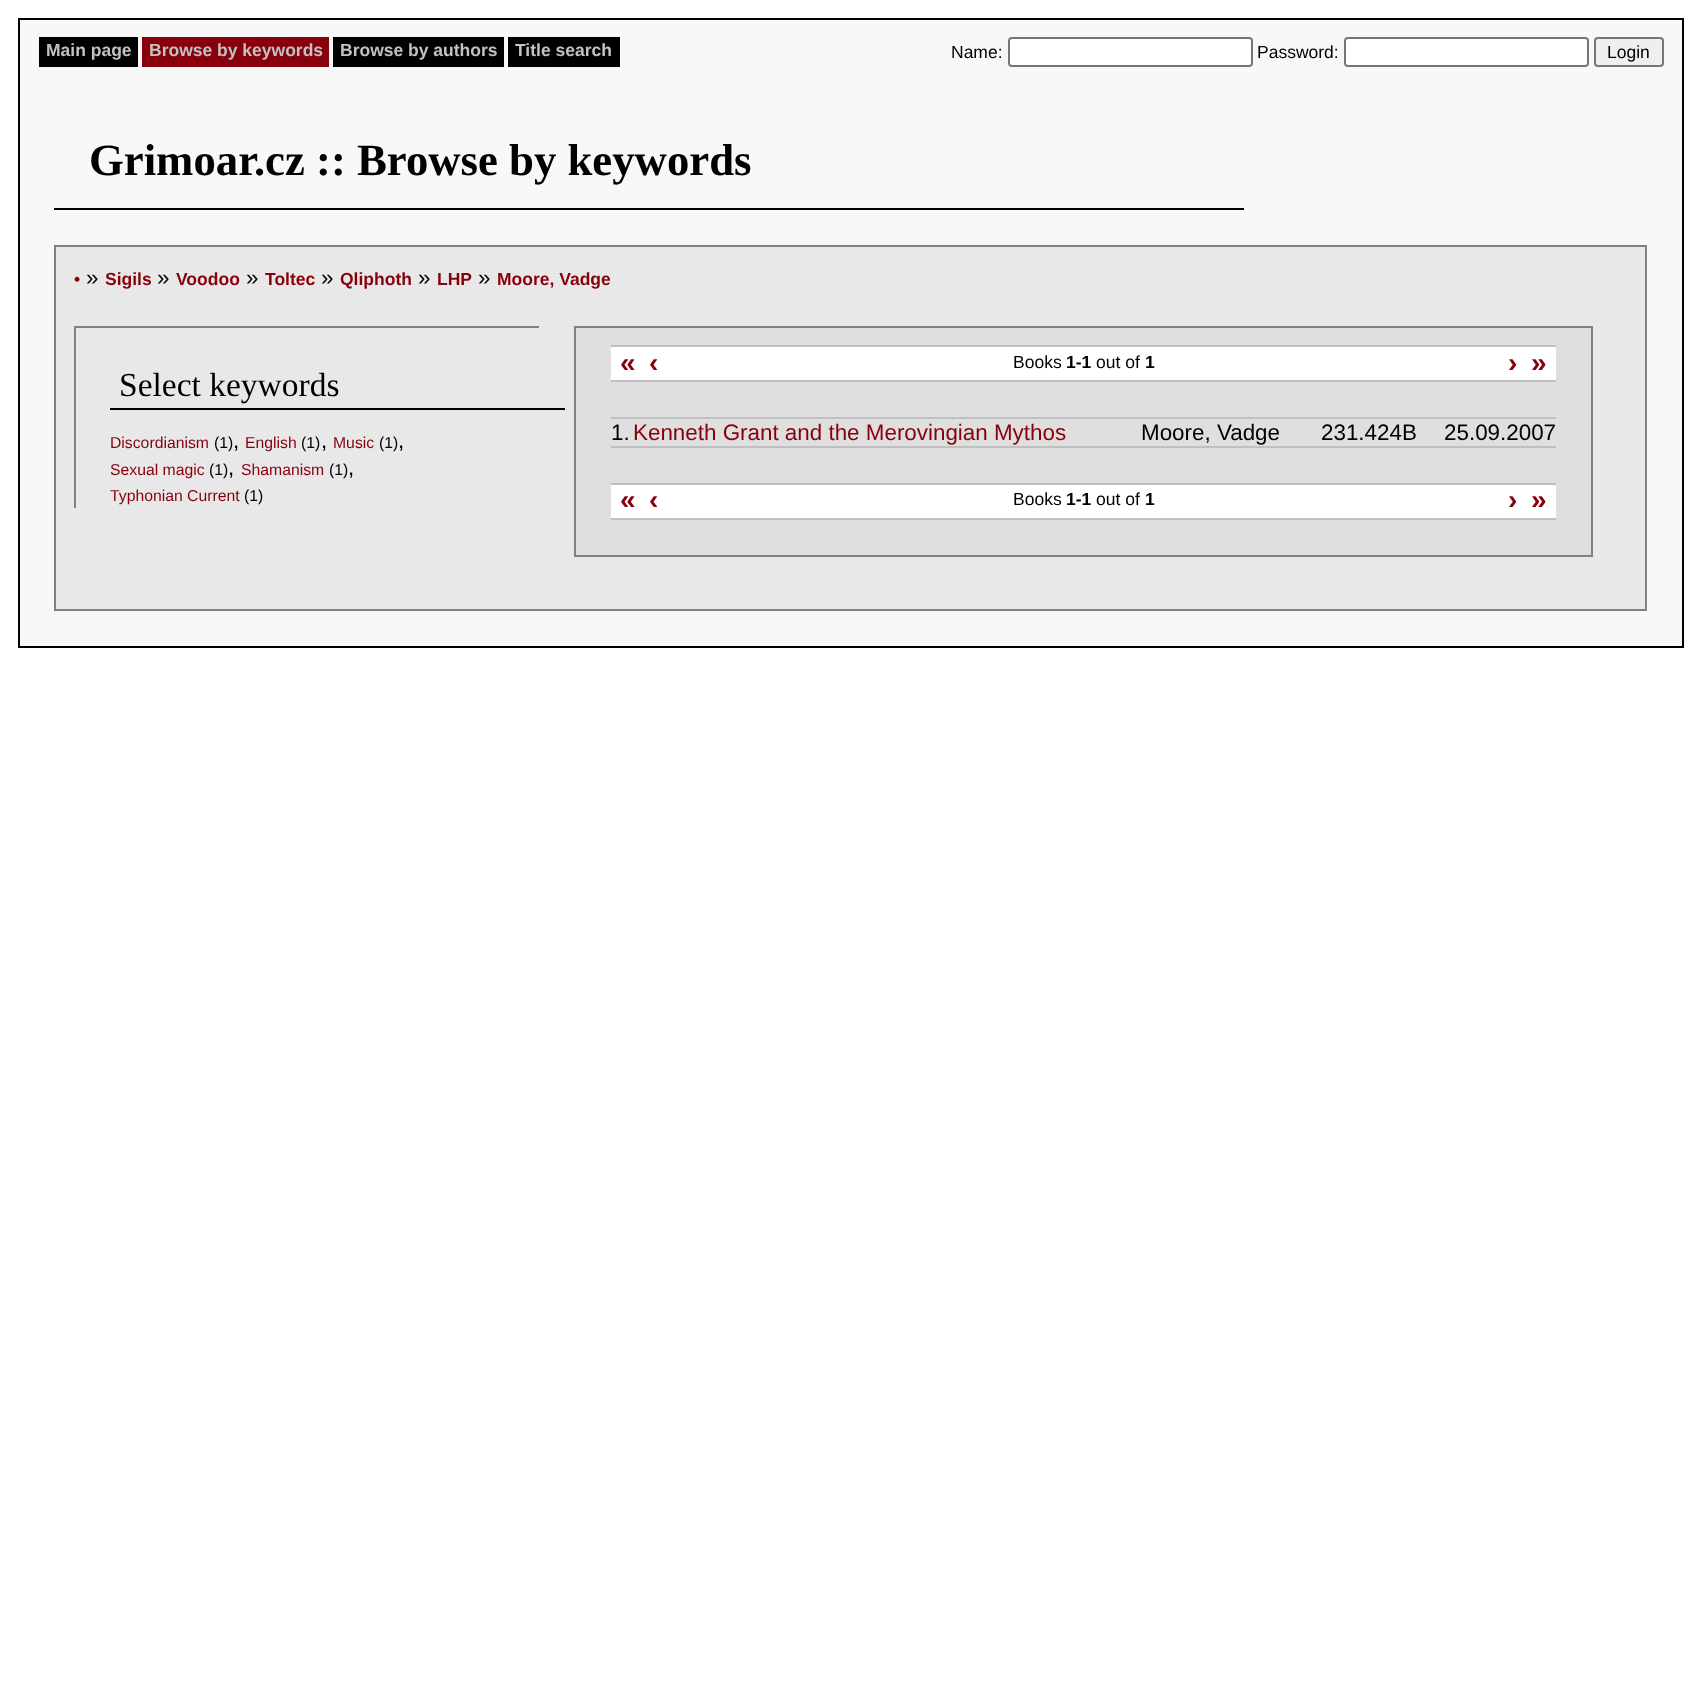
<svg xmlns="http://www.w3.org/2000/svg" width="1701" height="1699">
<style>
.a{font:bold 17.5px Liberation Sans;fill:#c2c2c2}
.b{font:17.5px Liberation Sans;fill:#000}
.c{font:bold 44.75px Liberation Serif;fill:#000}
.d{font:bold 17.5px Liberation Sans;fill:#87000c}
.e{font:22.4px Liberation Sans;fill:#000}
.f{font:33.5px Liberation Serif;fill:#000}
.g{font:15.75px Liberation Sans;fill:#87000c}
.h{font:15.75px Liberation Sans;fill:#000}
.i{font:bold 28px Liberation Sans;fill:#87000c}
.j{font:bold 17.5px Liberation Sans;fill:#000}
.k{font:22.4px Liberation Sans;fill:#87000c}
</style>
<rect width="100%" height="100%" fill="#fff"/>
<path fill="#f8f8f8" stroke="#000" stroke-width="2" d="M19 19h1664v628H19z"/>
<path fill="#000" d="M39 37h99v30H39z"/>
<path fill="#87000c" d="M142 37h187v30H142z"/>
<path fill="#000" d="M333 37h171v30H333z"/>
<path fill="#000" d="M508 37h112v30H508z"/>
<rect fill="#fff" stroke="#767676" stroke-width="2" x="1009" y="38" width="243" height="28" rx="3"/>
<rect fill="#fff" stroke="#767676" stroke-width="2" x="1345" y="38" width="243" height="28" rx="3"/>
<rect fill="#efefef" stroke="#767676" stroke-width="2" x="1595" y="38" width="68" height="28" rx="3"/>
<path fill="#000" d="M54 208h1190v2H54z"/>
<path fill="#e8e8e8" stroke="#808080" stroke-width="2" d="M55 246h1591v364H55z"/>
<path fill="#808080" d="M74 326h465v2H74z"/>
<path fill="#808080" d="M74 326h2v182H74z"/>
<path fill="#000" d="M110 408h455v2H110z"/>
<path fill="#dfdfdf" stroke="#808080" stroke-width="2" d="M575 327h1017v229H575z"/>
<path fill="#fff" d="M611 347h945v33H611z"/>
<path fill="#c0c0c0" d="M611 345h945v2H611z"/>
<path fill="#c0c0c0" d="M611 380h945v2H611z"/>
<path fill="#c0c0c0" d="M611 417h945v2H611z"/>
<path fill="#c0c0c0" d="M611 446h945v2H611z"/>
<path fill="#fff" d="M611 485h945v33H611z"/>
<path fill="#c0c0c0" d="M611 483h945v2H611z"/>
<path fill="#c0c0c0" d="M611 518h945v2H611z"/>
<text class="a" x="46" y="56">Main page</text>
<text class="a" x="149" y="56">Browse by keywords</text>
<text class="a" x="340" y="56">Browse by authors</text>
<text class="a" x="515" y="56">Title search</text>
<text class="b" x="951" y="58">Name:</text>
<text class="b" x="1257" y="58">Password:</text>
<text class="b" x="1607" y="58">Login</text>
<text class="c" x="89" y="175">Grimoar.cz :: Browse by keywords</text>
<text class="d" x="74" y="285">•</text>
<text class="e" x="86" y="285">»</text>
<text class="d" x="105" y="285">Sigils</text>
<text class="e" x="157" y="285">»</text>
<text class="d" x="176" y="285">Voodoo</text>
<text class="e" x="246" y="285">»</text>
<text class="d" x="265" y="285">Toltec</text>
<text class="e" x="321" y="285">»</text>
<text class="d" x="340" y="285">Qliphoth</text>
<text class="e" x="418" y="285">»</text>
<text class="d" x="437" y="285">LHP</text>
<text class="e" x="478" y="285">»</text>
<text class="d" x="497" y="285">Moore, Vadge</text>
<text class="f" x="119" y="396">Select keywords</text>
<text class="g" x="110" y="448">Discordianism</text>
<text class="h" x="214" y="448">(1)</text>
<text class="e" x="233" y="448">,</text>
<text class="g" x="245" y="448">English</text>
<text class="h" x="301" y="448">(1)</text>
<text class="e" x="321" y="448">,</text>
<text class="g" x="333" y="448">Music</text>
<text class="h" x="379" y="448">(1)</text>
<text class="e" x="398" y="448">,</text>
<text class="g" x="110" y="475">Sexual magic</text>
<text class="h" x="209" y="475">(1)</text>
<text class="e" x="228" y="475">,</text>
<text class="g" x="241" y="475">Shamanism</text>
<text class="h" x="329" y="475">(1)</text>
<text class="e" x="348" y="475">,</text>
<text class="g" x="110" y="501">Typhonian Current</text>
<text class="h" x="244" y="501">(1)</text>
<text class="i" x="620" y="372">«</text>
<text class="i" x="649" y="372">‹</text>
<text class="b" x="1013" y="368">Books</text>
<text class="j" x="1066" y="368">1-1</text>
<text class="b" x="1096" y="368">out of</text>
<text class="j" x="1145" y="368">1</text>
<text class="i" x="1508" y="372">›</text>
<text class="i" x="1531" y="372">»</text>
<text class="e" x="611" y="440">1.</text>
<text class="k" x="633" y="440">Kenneth Grant and the Merovingian Mythos</text>
<text class="e" x="1141" y="440">Moore, Vadge</text>
<text class="e" x="1321" y="440">231.424B</text>
<text class="e" x="1444" y="440">25.09.2007</text>
<text class="i" x="620" y="509">«</text>
<text class="i" x="649" y="509">‹</text>
<text class="b" x="1013" y="505">Books</text>
<text class="j" x="1066" y="505">1-1</text>
<text class="b" x="1096" y="505">out of</text>
<text class="j" x="1145" y="505">1</text>
<text class="i" x="1508" y="509">›</text>
<text class="i" x="1531" y="509">»</text>
</svg>
